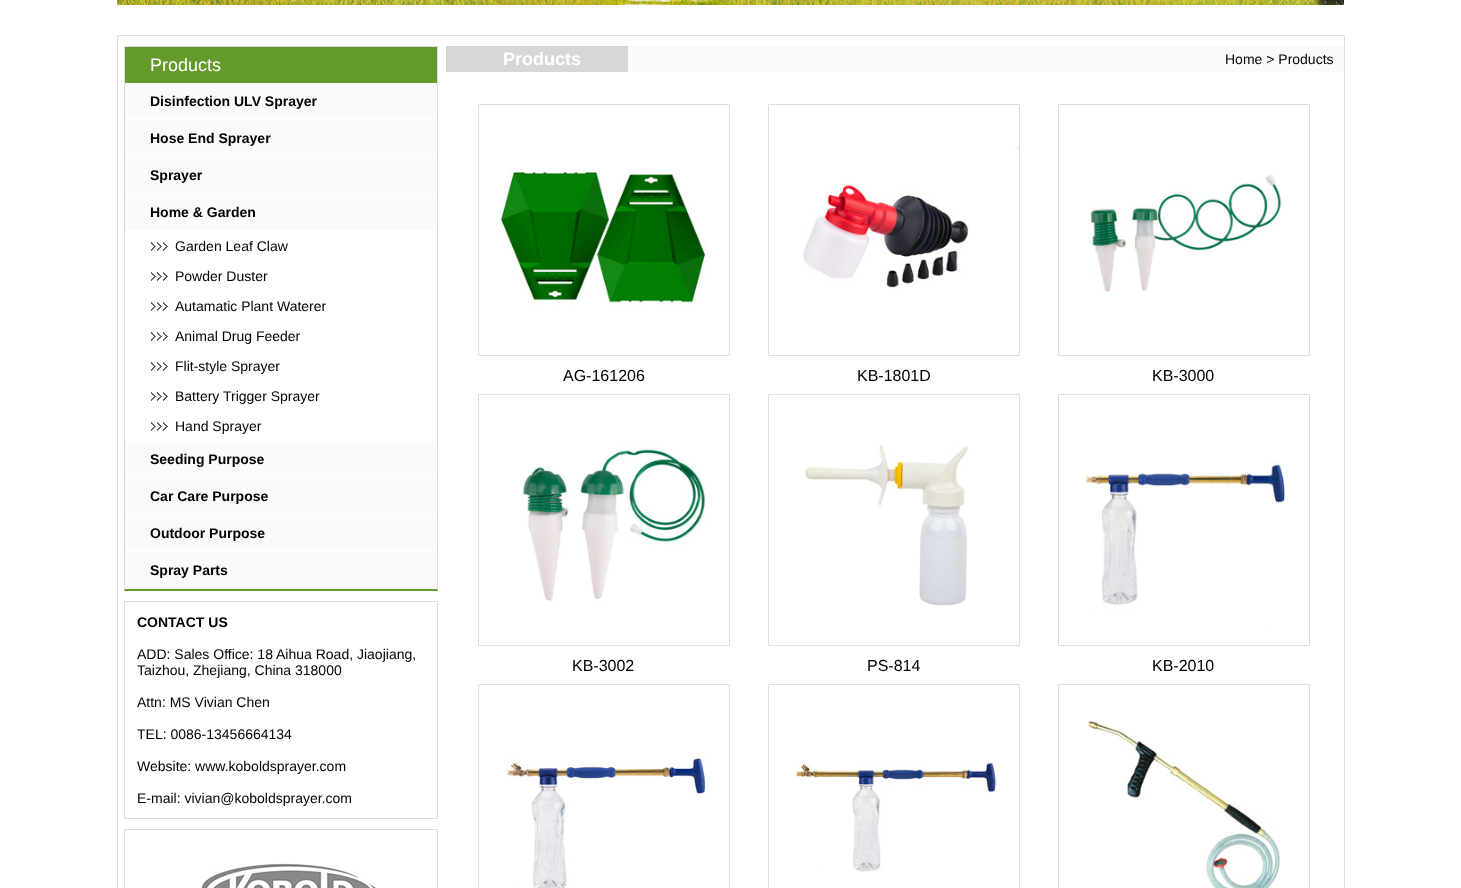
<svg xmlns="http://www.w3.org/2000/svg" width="1461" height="888">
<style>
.a{font:18px Liberation Sans;fill:#fff}
.b{font:bold 14px Liberation Sans;fill:#000}
.c{font:14px Liberation Sans;fill:#000}
.d{font:bold 18px Liberation Sans;fill:#fff}
.e{font:16px Liberation Sans;fill:#000}
</style>
<rect width="100%" height="100%" fill="#fff"/>
<image href="1.png" x="117" y="0" width="1227" height="5"/>
<path fill="none" stroke="#ddd" d="M117.5 35.5h1227v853H117.5z"/>
<path fill="#ddd" d="M124 46h314v1H124z"/>
<path fill="#ddd" d="M438 46v545l-1-2v-542z"/>
<path fill="#649a2a" d="M438 591h-314l1-2h312z"/>
<path fill="#ddd" d="M124 591v-545l1 1v542z"/>
<path fill="#649a2a" d="M125 47h312v36H125z"/>
<path fill="#fafafa" d="M125 83h312v36H125z"/>
<path fill="#fafafa" d="M125 120h312v36H125z"/>
<path fill="#fafafa" d="M125 157h312v36H125z"/>
<path fill="#fafafa" d="M125 194h312v36H125z"/>
<image href="2.png" x="151" y="242" width="17" height="9"/>
<image href="2.png" x="151" y="272" width="17" height="9"/>
<image href="2.png" x="151" y="302" width="17" height="9"/>
<image href="2.png" x="151" y="332" width="17" height="9"/>
<image href="2.png" x="151" y="362" width="17" height="9"/>
<image href="2.png" x="151" y="392" width="17" height="9"/>
<image href="2.png" x="151" y="422" width="17" height="9"/>
<path fill="#fafafa" d="M125 441h312v36H125z"/>
<path fill="#fafafa" d="M125 478h312v36H125z"/>
<path fill="#fafafa" d="M125 515h312v36H125z"/>
<path fill="#fafafa" d="M125 552h312v36H125z"/>
<path fill="none" stroke="#d2deea" d="M124.5 601.5h313v217H124.5z"/>
<path fill="none" stroke="#d2deea" d="M124.5 829.5h313v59H124.5z"/>
<image href="3.png" x="201" y="863" width="176" height="25"/>
<path fill="#fafafa" d="M628 46h716v26H628z"/>
<path fill="#d7d7d7" d="M446 46h182v26H446z"/>
<path fill="none" stroke="#ddd" d="M478.5 104.5h251v251H478.5z"/>
<image href="4.png" x="500" y="169" width="208" height="136"/>
<path fill="none" stroke="#ddd" d="M768.5 104.5h251v251H768.5z"/>
<image href="5.png" x="803" y="146" width="216" height="143"/>
<path fill="none" stroke="#ddd" d="M1058.5 104.5h251v251H1058.5z"/>
<image href="6.png" x="1088" y="174" width="194" height="118"/>
<path fill="none" stroke="#ddd" d="M478.5 394.5h251v251H478.5z"/>
<image href="7.png" x="522" y="447" width="185" height="155"/>
<path fill="none" stroke="#ddd" d="M768.5 394.5h251v251H768.5z"/>
<image href="8.png" x="805" y="445" width="164" height="161"/>
<path fill="none" stroke="#ddd" d="M1058.5 394.5h251v251H1058.5z"/>
<image href="9.png" x="1082" y="460" width="206" height="166"/>
<path fill="none" stroke="#ddd" d="M478.5 684.5h251v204H478.5z"/>
<image href="10.png" x="505" y="756" width="202" height="132"/>
<path fill="none" stroke="#ddd" d="M768.5 684.5h251v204H768.5z"/>
<image href="11.png" x="792" y="762" width="206" height="110"/>
<path fill="none" stroke="#ddd" d="M1058.5 684.5h251v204H1058.5z"/>
<image href="12.png" x="1088" y="721" width="192" height="167"/>
<text class="a" x="150" y="71">Products</text>
<text class="b" x="150" y="106">Disinfection ULV Sprayer</text>
<text class="b" x="150" y="143">Hose End Sprayer</text>
<text class="b" x="150" y="180">Sprayer</text>
<text class="b" x="150" y="217">Home &amp; Garden</text>
<text class="c" x="175" y="251">Garden Leaf Claw</text>
<text class="c" x="175" y="281">Powder Duster</text>
<text class="c" x="175" y="311">Autamatic Plant Waterer</text>
<text class="c" x="175" y="341">Animal Drug Feeder</text>
<text class="c" x="175" y="371">Flit-style Sprayer</text>
<text class="c" x="175" y="401">Battery Trigger Sprayer</text>
<text class="c" x="175" y="431">Hand Sprayer</text>
<text class="b" x="150" y="464">Seeding Purpose</text>
<text class="b" x="150" y="501">Car Care Purpose</text>
<text class="b" x="150" y="538">Outdoor Purpose</text>
<text class="b" x="150" y="575">Spray Parts</text>
<text class="b" x="137" y="627">CONTACT US</text>
<text class="c" x="137" y="659">ADD: Sales Office: 18 Aihua Road, Jiaojiang,</text>
<text class="c" x="137" y="675">Taizhou, Zhejiang, China 318000</text>
<text class="c" x="137" y="707">Attn: MS Vivian Chen</text>
<text class="c" x="137" y="739">TEL: 0086-13456664134</text>
<text class="c" x="137" y="771">Website: www.koboldsprayer.com</text>
<text class="c" x="137" y="803">E-mail: vivian@koboldsprayer.com</text>
<text class="d" x="503" y="65">Products</text>
<text class="c" x="1225" y="64">Home &gt; Products</text>
<text class="e" x="563" y="381">AG-161206</text>
<text class="e" x="857" y="381">KB-1801D</text>
<text class="e" x="1152" y="381">KB-3000</text>
<text class="e" x="572" y="671">KB-3002</text>
<text class="e" x="867" y="671">PS-814</text>
<text class="e" x="1152" y="671">KB-2010</text>
</svg>
